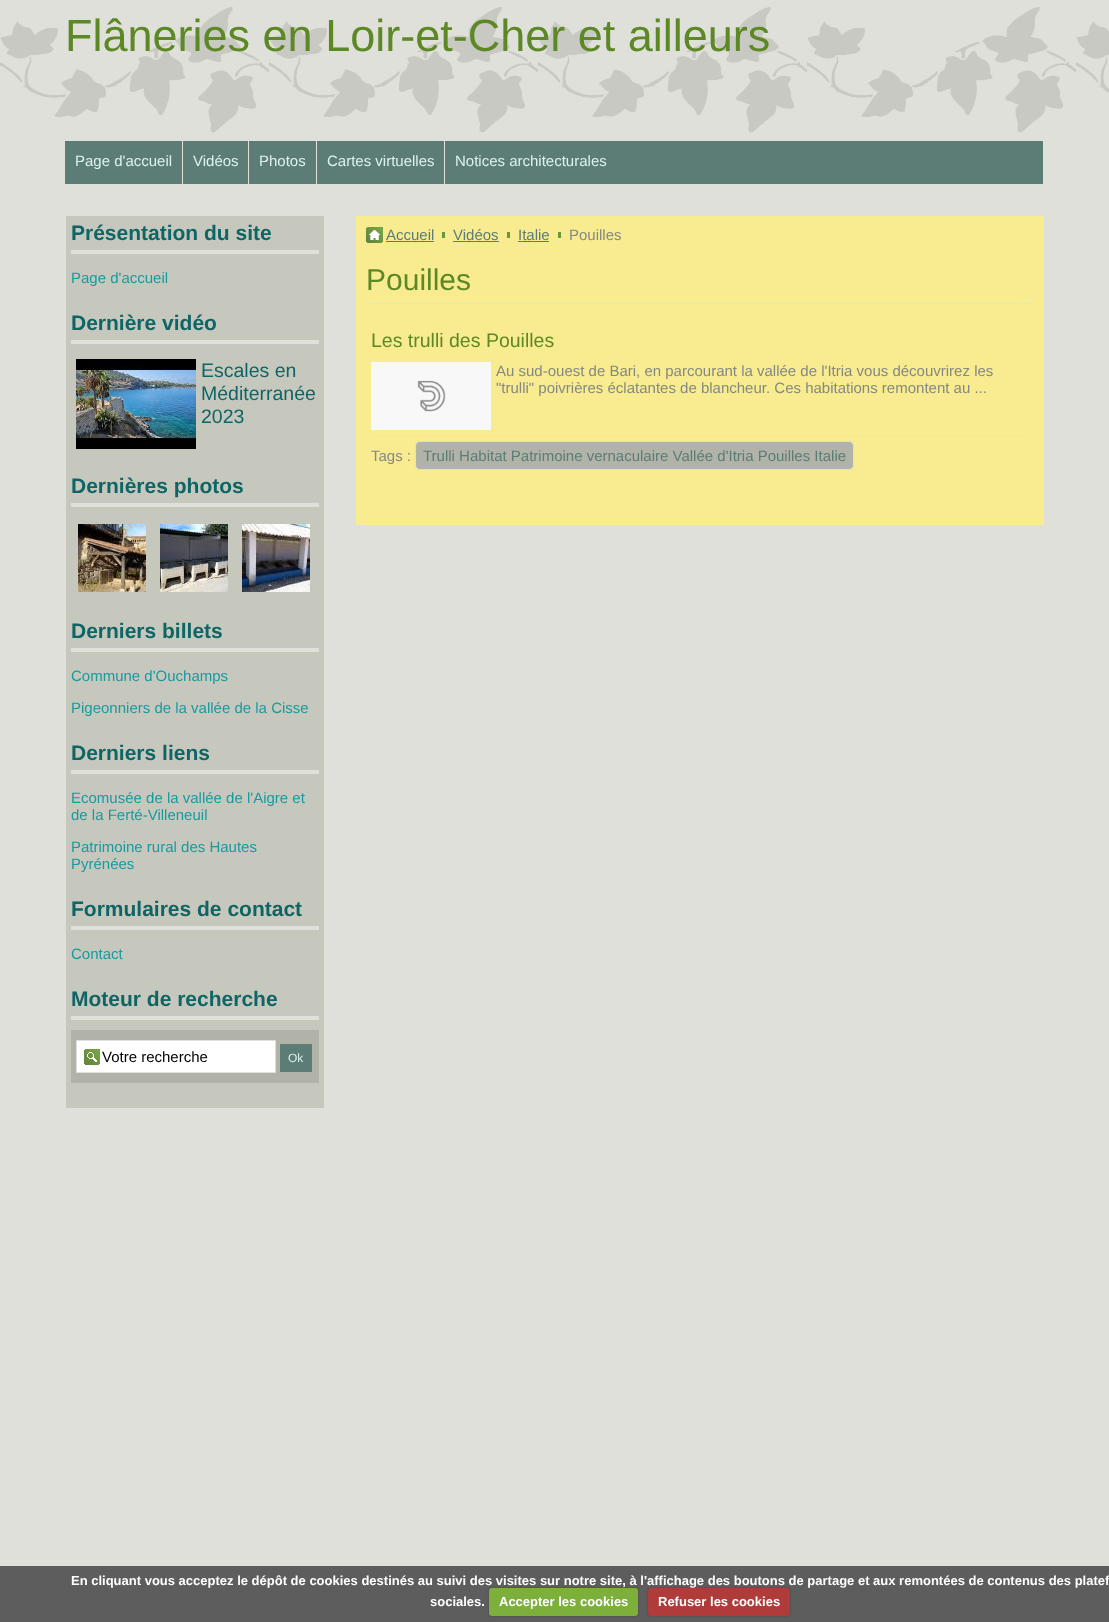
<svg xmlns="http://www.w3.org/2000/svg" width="1109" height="1622">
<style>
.a{font:45px Liberation Sans;fill:#5d8826}
.b{font:15px Liberation Sans;fill:#ddf1ef}
.c{font:bold 21px Liberation Sans;fill:#0f6565}
.d{font:15px Liberation Sans;fill:#189ba0}
.e{font:19.5px Liberation Sans;fill:#0f6565}
.f{font:15px Liberation Sans;fill:#000}
.g{font:12px Liberation Sans;fill:#ddf1ef}
.h{font:15px Liberation Sans;fill:#5c7d76}
.i{font:15px Liberation Sans;fill:#848985}
.j{font:30px Liberation Sans;fill:#5d8826}
.k{font:19.5px Liberation Sans;fill:#5d8826}
.l{font:bold 13px Liberation Sans;fill:#fff}
</style>
<rect width="100%" height="100%" fill="#dfe0da"/>
<image href="1.png" x="0" y="7" width="1109" height="126"/>
<path fill="#5c7d76" d="M65 141h978v43H65z"/>
<path fill="#dfe0da" d="M182 141h1v43H182z"/>
<path fill="#dfe0da" d="M248 141h1v43H248z"/>
<path fill="#dfe0da" d="M316 141h1v43H316z"/>
<path fill="#dfe0da" d="M444 141h1v43H444z"/>
<path fill="#c6c8bd" d="M66 216h258v892H66z"/>
<path fill="#dfe0da" d="M71 250h248v4H71z"/>
<path fill="#dfe0da" d="M71 340h248v4H71z"/>
<image href="2.png" x="76" y="359" width="120" height="90"/>
<path fill="#dfe0da" d="M71 503h248v4H71z"/>
<image href="3.png" x="78" y="524" width="68" height="68"/>
<image href="4.png" x="160" y="524" width="68" height="68"/>
<image href="5.png" x="242" y="524" width="68" height="68"/>
<path fill="#dfe0da" d="M71 648h248v4H71z"/>
<path fill="#dfe0da" d="M71 770h248v4H71z"/>
<path fill="#dfe0da" d="M71 926h248v4H71z"/>
<path fill="#dfe0da" d="M71 1016h248v4H71z"/>
<path fill="#b1b3a9" d="M71 1030h248v53H71z"/>
<path fill="#fff" d="M77 1041h198v31H77z"/>
<image href="6.png" x="84" y="1049" width="16" height="16"/>
<path fill="none" stroke="#dfe0da" d="M76.5 1040.5h199v32H76.5z"/>
<path fill="#5c7d76" d="M280 1044h32v28H280z"/>
<path fill="#f9eb8f" d="M356 216h688v309H356z"/>
<image href="7.png" x="366" y="227" width="17" height="16"/>
<path fill="#5c7d76" d="M386 241h48v1H386z"/>
<path fill="#6b973c" d="M442 232h3v6H442z"/>
<path fill="#5c7d76" d="M453 241h46v1H453z"/>
<path fill="#6b973c" d="M507 232h3v6H507z"/>
<path fill="#5c7d76" d="M518 241h31v1H518z"/>
<path fill="#6b973c" d="M558 232h3v6H558z"/>
<path fill="none" stroke="#dfe0da" stroke-dasharray="1 1" d="M366 303.5h668"/>
<image href="8.png" x="371" y="362" width="120" height="68"/>
<path fill="none" stroke="#dfe0da" stroke-dasharray="1 1" d="M371 435.5h658"/>
<rect fill="#b1b3a9" stroke="#dfe0da" x="415.5" y="441.5" width="438" height="28" rx="4.5"/>
<path fill="#5d5d5d" d="M0 1566h1109v56H0z"/>
<rect fill="#00000040" filter="blur(1px)" x="489" y="1588" width="149" height="28" rx="3"/>
<rect fill="#7daf3b" x="489" y="1588" width="149" height="28" rx="3"/>
<rect fill="#00000040" filter="blur(1px)" x="648" y="1588" width="142" height="28" rx="3"/>
<rect fill="#af3b3b" x="648" y="1588" width="142" height="28" rx="3"/>
<text class="a" x="65" y="51">Flâneries en Loir-et-Cher et ailleurs</text>
<text class="b" x="75" y="166">Page d'accueil</text>
<text class="b" x="193" y="166">Vidéos</text>
<text class="b" x="259" y="166">Photos</text>
<text class="b" x="327" y="166">Cartes virtuelles</text>
<text class="b" x="455" y="166">Notices architecturales</text>
<text class="c" x="71" y="240">Présentation du site</text>
<text class="d" x="71" y="283">Page d'accueil</text>
<text class="c" x="71" y="330">Dernière vidéo</text>
<text class="e" x="201" y="377">Escales en</text>
<text class="e" x="201" y="400">Méditerranée</text>
<text class="e" x="201" y="423">2023</text>
<text class="c" x="71" y="493">Dernières photos</text>
<text class="c" x="71" y="638">Derniers billets</text>
<text class="d" x="71" y="681">Commune d'Ouchamps</text>
<text class="d" x="71" y="713">Pigeonniers de la vallée de la Cisse</text>
<text class="c" x="71" y="760">Derniers liens</text>
<text class="d" x="71" y="803">Ecomusée de la vallée de l'Aigre et</text>
<text class="d" x="71" y="820">de la Ferté-Villeneuil</text>
<text class="d" x="71" y="852">Patrimoine rural des Hautes</text>
<text class="d" x="71" y="869">Pyrénées</text>
<text class="c" x="71" y="916">Formulaires de contact</text>
<text class="d" x="71" y="959">Contact</text>
<text class="c" x="71" y="1006">Moteur de recherche</text>
<text class="f" x="102" y="1062">Votre recherche</text>
<text class="g" x="288" y="1062">Ok</text>
<text class="h" x="386" y="240">Accueil</text>
<text class="h" x="453" y="240">Vidéos</text>
<text class="h" x="518" y="240">Italie</text>
<text class="i" x="569" y="240">Pouilles</text>
<text class="j" x="366" y="290">Pouilles</text>
<text class="k" x="371" y="347">Les trulli des Pouilles</text>
<text class="i" x="496" y="376">Au sud-ouest de Bari, en parcourant la vallée de l'Itria vous découvrirez les</text>
<text class="i" x="496" y="393">"trulli" poivrières éclatantes de blancheur. Ces habitations remontent au ...</text>
<text class="i" x="371" y="461">Tags :</text>
<text class="h" x="423" y="461">Trulli Habitat Patrimoine vernaculaire Vallée d'Itria Pouilles Italie</text>
<text class="l" x="71" y="1585">En cliquant vous acceptez le dépôt de cookies destinés au suivi des visites sur notre site, à l'affichage des boutons de partage et aux remontées de contenus des platef</text>
<text class="l" x="430" y="1606">sociales.</text>
<text class="l" x="499" y="1606">Accepter les cookies</text>
<text class="l" x="658" y="1606">Refuser les cookies</text>
</svg>
